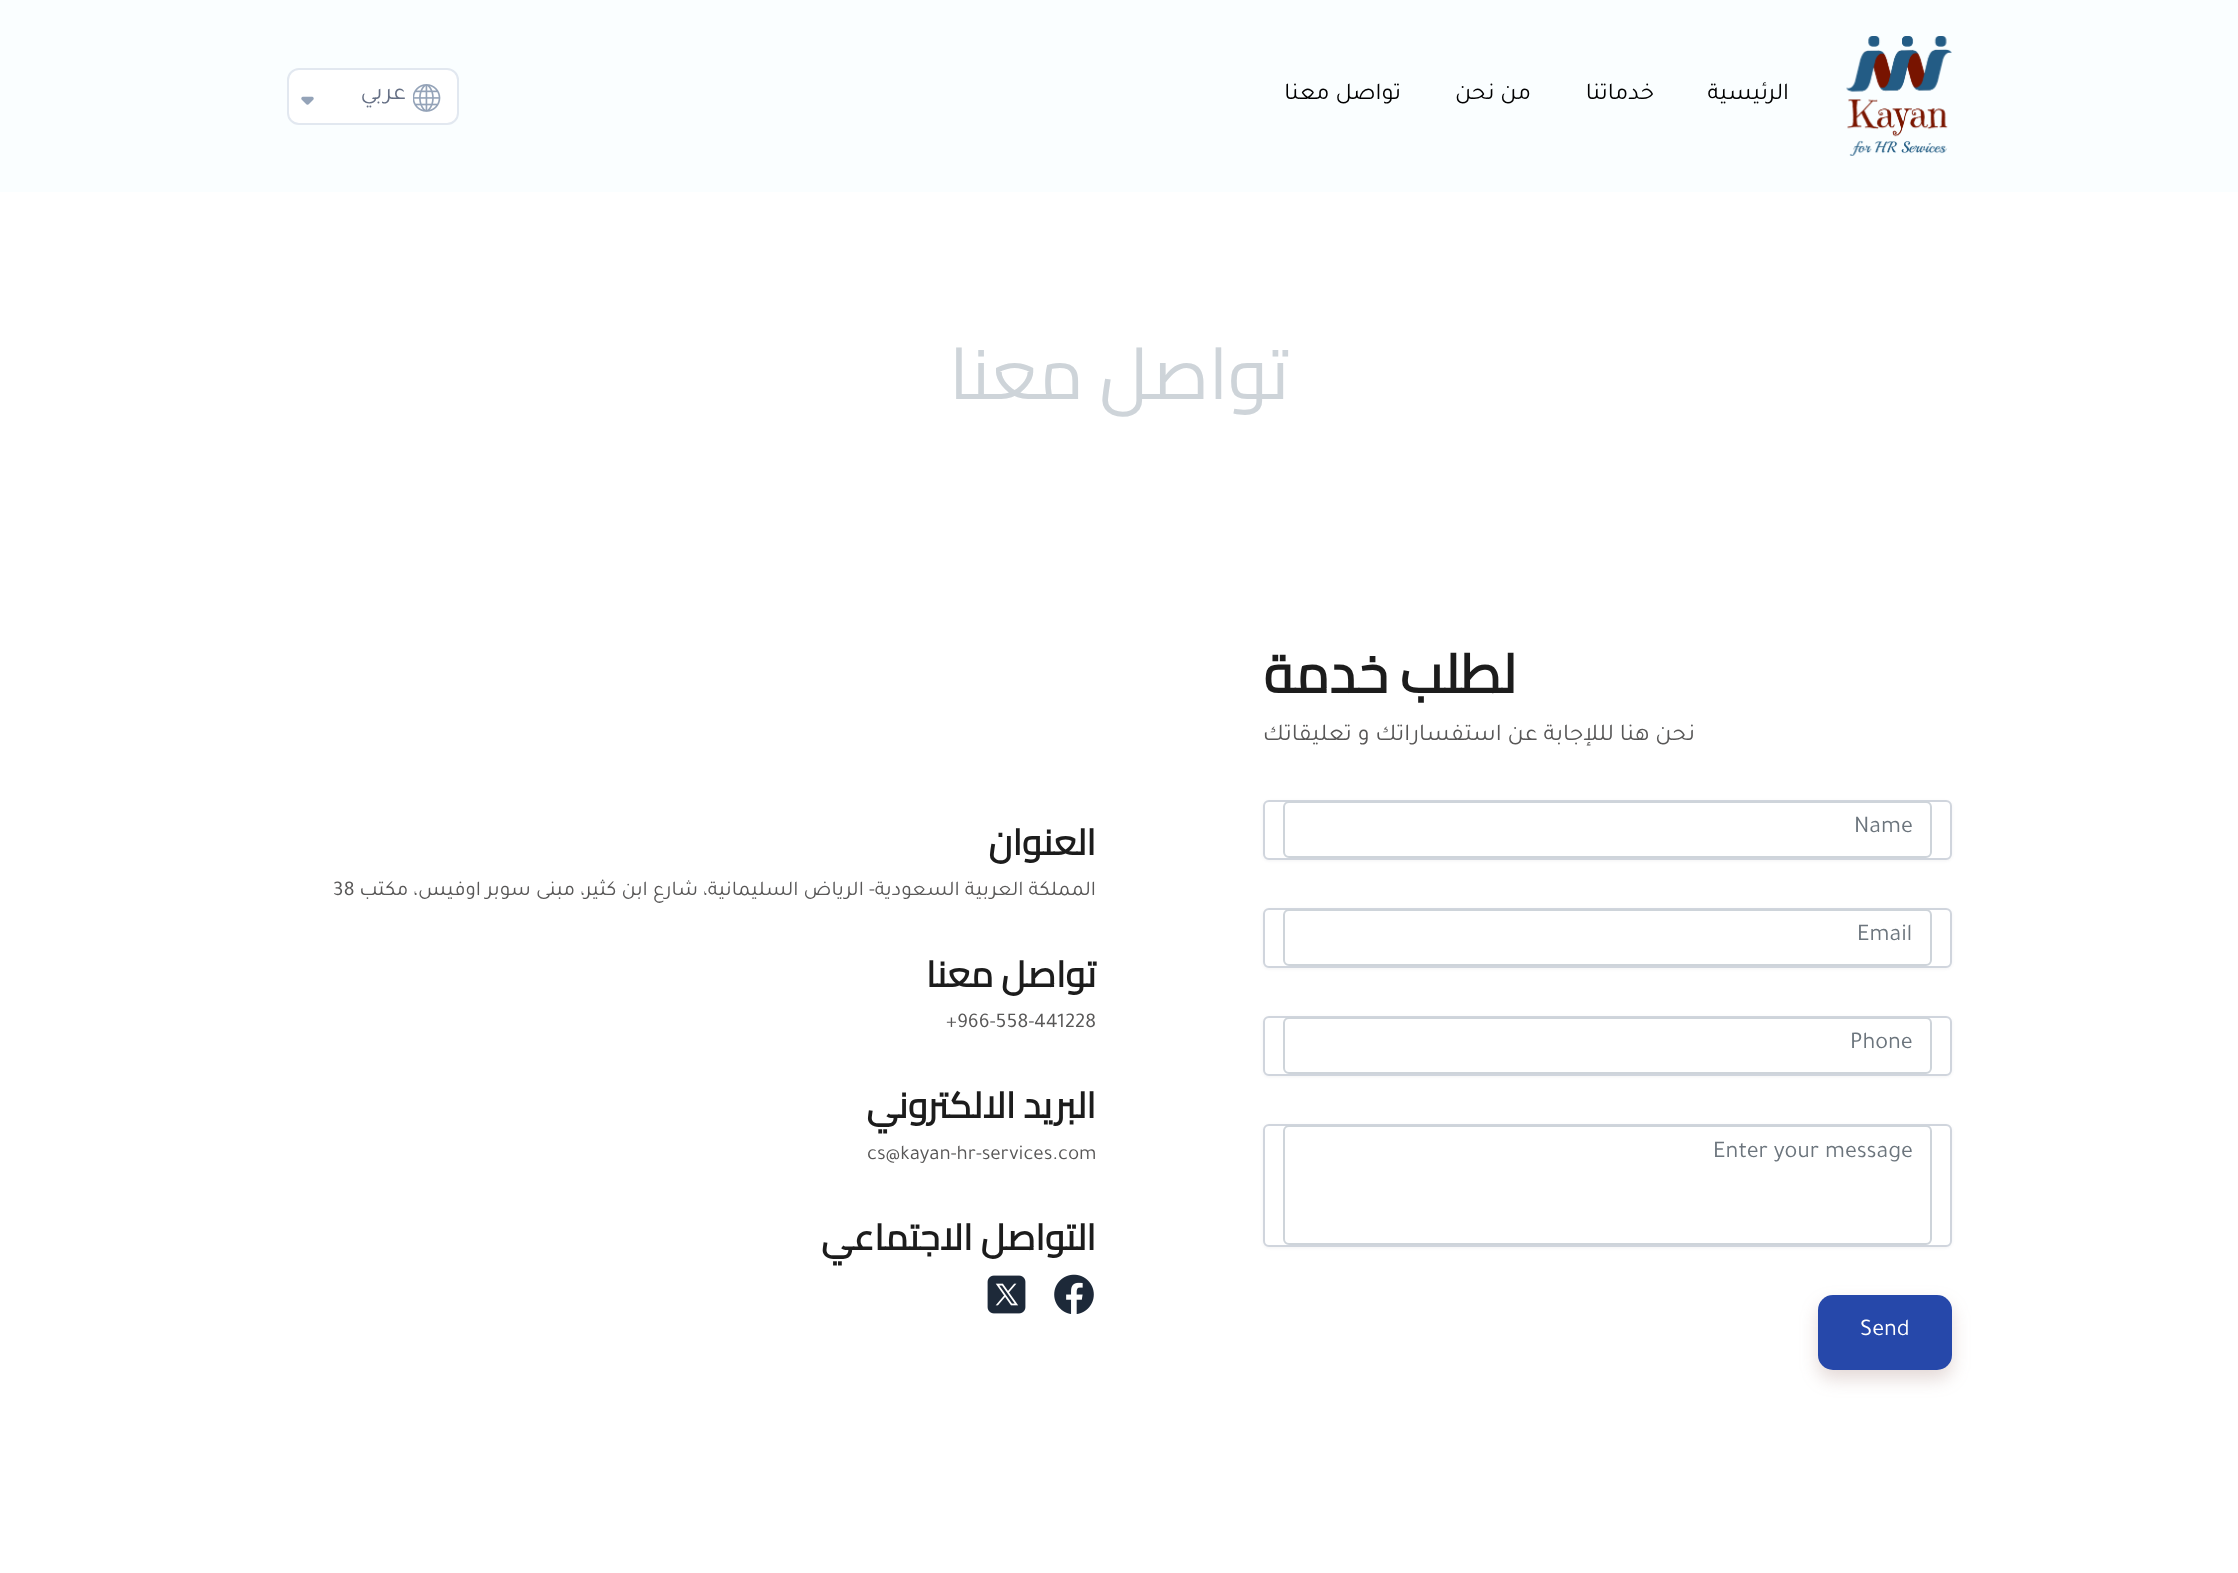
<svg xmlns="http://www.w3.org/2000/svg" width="2238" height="1573">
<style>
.a{font:24px Tajawal;direction:rtl;fill:#000}
.b{font:24px Tajawal;direction:rtl;fill:#667085}
.c{font:72px Cairo;direction:rtl;fill:#ced4d9}
.d{font:bold 54px Cairo;direction:rtl;fill:#1c1c1c}
.e{font:24px Tajawal;direction:rtl;fill:#585757}
.f{font:24px Tajawal;fill:#6c757d}
.g{font:24px Tajawal;fill:#fff}
.h{font:bold 36px Cairo;direction:rtl;fill:#1c1c1c}
.i{font:21px Tajawal;direction:rtl;fill:#585757}
.j{font:21px Tajawal;fill:#585757}
</style>
<rect width="100%" height="100%" fill="#fff"/>
<path fill="#fafeff" d="M0 0h2238v192H0z"/>
<image href="1.png" x="1846" y="36" width="106" height="120"/>
<rect fill="#fff" stroke="#e2e8f0" stroke-width="2" x="288" y="69" width="170" height="55" rx="11"/>
<image href="2.png" x="413" y="84" width="28" height="28"/>
<image href="3.png" x="301" y="96" width="13" height="9"/>
<rect fill="#1018280d" filter="blur(1.5px)" x="1263" y="801" width="689" height="60" rx="6"/>
<rect fill="#fff" stroke="#d0d5dd" stroke-width="2" x="1264" y="801" width="687" height="58" rx="5"/>
<rect fill="none" stroke="#ced4da" stroke-width="2" x="1284" y="802" width="647" height="55" rx="5"/>
<rect fill="#1018280d" filter="blur(1.5px)" x="1263" y="909" width="689" height="60" rx="6"/>
<rect fill="#fff" stroke="#d0d5dd" stroke-width="2" x="1264" y="909" width="687" height="58" rx="5"/>
<rect fill="none" stroke="#ced4da" stroke-width="2" x="1284" y="910" width="647" height="55" rx="5"/>
<rect fill="#1018280d" filter="blur(1.5px)" x="1263" y="1017" width="689" height="60" rx="6"/>
<rect fill="#fff" stroke="#d0d5dd" stroke-width="2" x="1264" y="1017" width="687" height="58" rx="5"/>
<rect fill="none" stroke="#ced4da" stroke-width="2" x="1284" y="1018" width="647" height="55" rx="5"/>
<rect fill="#1018280d" filter="blur(1.5px)" x="1263" y="1125" width="689" height="123" rx="6"/>
<rect fill="#fff" stroke="#d0d5dd" stroke-width="2" x="1264" y="1125" width="687" height="121" rx="5"/>
<rect fill="none" stroke="#ced4da" stroke-width="2" x="1284" y="1126" width="647" height="118" rx="5"/>
<rect fill="#8d61593d" filter="blur(9px)" x="1818" y="1304" width="134" height="75" rx="15"/>
<rect fill="#2648aa" x="1818" y="1295" width="134" height="75" rx="15"/>
<image href="4.png" x="1054" y="1274" width="40" height="40"/>
<image href="5.png" x="987" y="1275" width="39" height="39"/>
<text class="a" x="1789" y="99">الرئيسية</text>
<text class="a" x="1654" y="99">خدماتنا</text>
<text class="a" x="1531" y="99">من نحن</text>
<text class="a" x="1401" y="99">تواصل معنا</text>
<text class="b" x="406" y="99">عربي</text>
<text class="c" x="1289" y="399">تواصل معنا</text>
<text class="d" x="1516" y="693">لطلب خدمة</text>
<text class="e" x="1695" y="740">نحن هنا لللإجابة عن استفساراتك و تعليقاتك</text>
<text class="f" x="1854" y="832">Name</text>
<text class="f" x="1857" y="940">Email</text>
<text class="f" x="1850" y="1048">Phone</text>
<text class="f" x="1713" y="1157">Enter your message</text>
<text class="g" x="1860" y="1335">Send</text>
<text class="h" x="1096" y="855">العنوان</text>
<text class="i" x="1096" y="895">المملكة العربية السعودية- الرياض السليمانية، شارع ابن كثير، مبنى سوبر اوفيس، مكتب</text>
<text class="j" x="333" y="895">38</text>
<text class="h" x="1096" y="987">تواصل معنا</text>
<text class="j" x="946" y="1027">+966-558-441228</text>
<text class="h" x="1096" y="1118">البريد الالكتروني</text>
<text class="j" x="867" y="1159">cs@kayan-hr-services.com</text>
<text class="h" x="1096" y="1250">التواصل الاجتماعي</text>
</svg>
